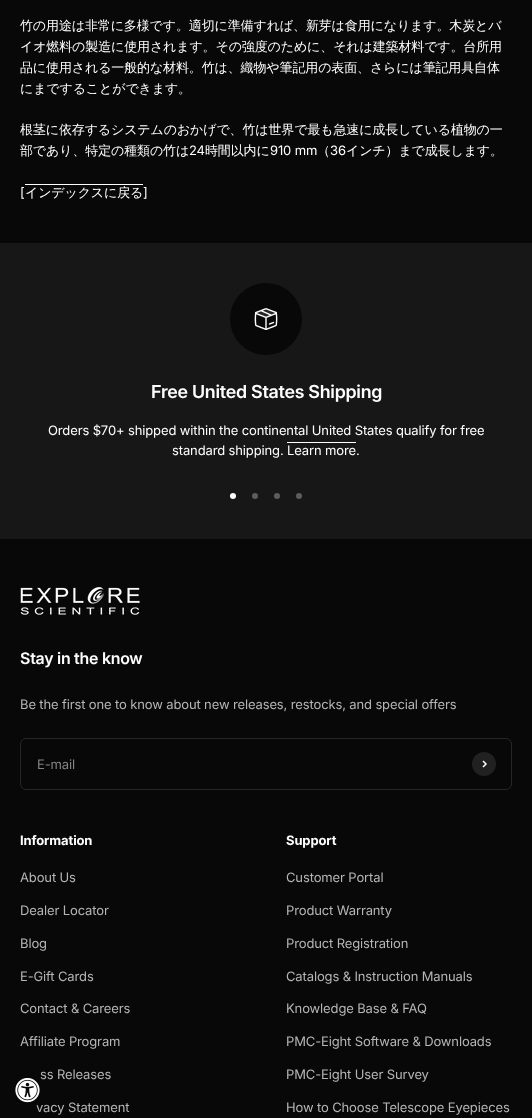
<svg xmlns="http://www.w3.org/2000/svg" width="532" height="1118">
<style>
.a{font:500 13px WenQuanYi Zen Hei;letter-spacing:-0.13px;fill:#fff}
.b{font:13px Inter;letter-spacing:-0.13px;fill:#fff}
.c{font:600 18px Inter;letter-spacing:-0.25px;fill:#fff}
.d{font:600 16px 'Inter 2';letter-spacing:-0.25px;fill:#fff}
.e{font:13px Inter;letter-spacing:-0.13px;fill:#b5b5b5}
.f{font:13px Inter;letter-spacing:-0.13px;fill:#848484}
.g{font:bold 13px Inter;letter-spacing:-0.13px;fill:#fff}
</style>
<rect width="100%" height="100%" fill="#080808"/>
<path fill="#fff" d="M25 184h118v1H25z"/>
<path fill="#171717" d="M0 243h532v296H0z"/>
<circle fill="#080808" cx="266" cy="319" r="36"/>
<image href="1.png" x="254" y="308" width="24" height="22"/>
<path fill="#fff" d="M287 442h69v1H287z"/>
<circle fill="#fff" cx="233" cy="496" r="3"/>
<circle fill="#5d5d5d" cx="255" cy="496" r="3"/>
<circle fill="#5d5d5d" cx="277" cy="496" r="3"/>
<circle fill="#5d5d5d" cx="299" cy="496" r="3"/>
<image href="2.png" x="20" y="587" width="120" height="28"/>
<rect fill="none" stroke="#262626" x="20.5" y="738.5" width="491" height="51" rx="5.5"/>
<circle fill="#212121" cx="484" cy="764" r="12"/>
<path fill="none" stroke="#fff" stroke-width="1.5" d="M483 767l3-3l-3-3"/>
<text class="a" x="20" y="30">竹の用途は非常に多様です。適切に準備すれば、新芽は食用になります。木炭とバ</text>
<text class="a" x="20" y="51">イオ燃料の製造に使用されます。その強度のために、それは建築材料です。台所用</text>
<text class="a" x="20" y="72">品に使用される一般的な材料。竹は、織物や筆記用の表面、さらには筆記用具自体</text>
<text class="a" x="20" y="93">にまですることができます。</text>
<text class="a" x="20" y="134">根茎に依存するシステムのおかげで、竹は世界で最も急速に成長している植物の一</text>
<text class="a" x="20" y="155">部であり、特定の種類の竹は</text>
<text class="b" x="189" y="155">24</text>
<text class="a" x="205" y="155">時間以内に</text>
<text class="b" x="270" y="155">910 mm</text>
<text class="a" x="317" y="155">（</text>
<text class="b" x="330" y="155">36</text>
<text class="a" x="346" y="155">インチ）まで成長します。</text>
<text class="b" x="20" y="197">[</text>
<text class="a" x="25" y="197">インデックスに戻る</text>
<text class="b" x="143" y="197">]</text>
<text class="c" x="151" y="398">Free United States Shipping</text>
<text class="b" x="48" y="435">Orders $70+ shipped within the continental United States qualify for free</text>
<text class="b" x="172" y="455">standard shipping. Learn more.</text>
<text class="d" x="20" y="664">Stay in the know</text>
<text class="e" x="20" y="709">Be the first one to know about new releases, restocks, and special offers</text>
<text class="f" x="37" y="769">E-mail</text>
<text class="g" x="20" y="845">Information</text>
<text class="e" x="20" y="882">About Us</text>
<text class="e" x="20" y="915">Dealer Locator</text>
<text class="e" x="20" y="948">Blog</text>
<text class="e" x="20" y="981">E-Gift Cards</text>
<text class="e" x="20" y="1013">Contact &amp; Careers</text>
<text class="e" x="20" y="1046">Affiliate Program</text>
<text class="e" x="40" y="1079">ss Releases</text>
<text class="e" x="36" y="1112">vacy Statement</text>
<text class="g" x="286" y="845">Support</text>
<text class="e" x="286" y="882">Customer Portal</text>
<text class="e" x="286" y="915">Product Warranty</text>
<text class="e" x="286" y="948">Product Registration</text>
<text class="e" x="286" y="981">Catalogs &amp; Instruction Manuals</text>
<text class="e" x="286" y="1013">Knowledge Base &amp; FAQ</text>
<text class="e" x="286" y="1046">PMC-Eight Software &amp; Downloads</text>
<text class="e" x="286" y="1079">PMC-Eight User Survey</text>
<text class="e" x="286" y="1112">How to Choose Telescope Eyepieces</text>
<circle fill="#080808" cx="27.5" cy="1090.5" r="17.5"/>
<image href="3.png" x="15" y="1078" width="25" height="25"/>
</svg>
